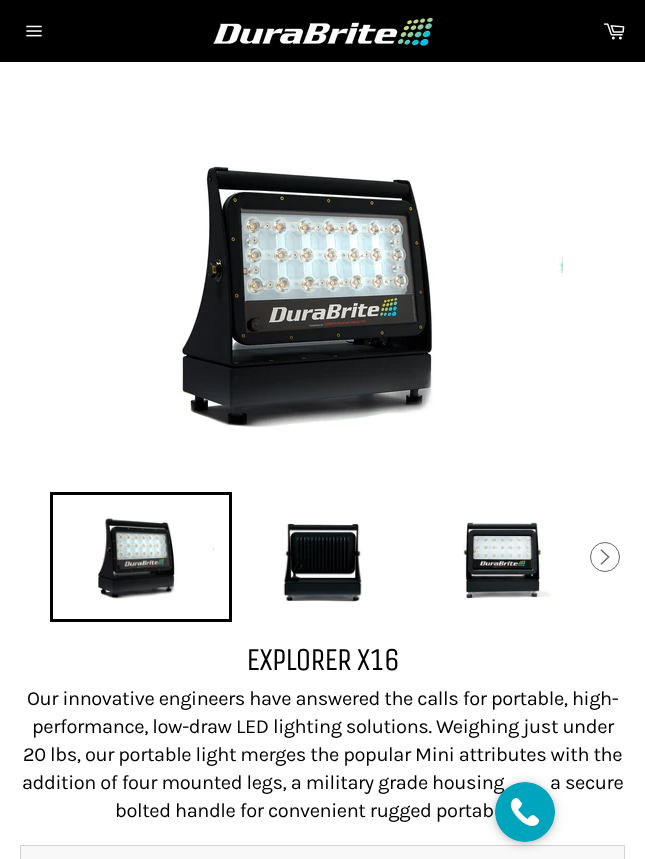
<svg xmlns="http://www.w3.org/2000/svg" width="645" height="859">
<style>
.a{font:32px Unica One;letter-spacing:-1.6px;fill:#000}
.b{font:20px Karla;letter-spacing:-0.4px;fill:#000}
</style>
<rect width="100%" height="100%" fill="#fff"/>
<path fill="#000" d="M0 0h645v62H0z"/>
<image href="1.png" x="26" y="25" width="16" height="12"/>
<image href="2.png" x="213" y="17" width="220" height="29"/>
<image href="3.png" x="603" y="23" width="22" height="17"/>
<image href="4.png" x="179" y="165" width="384" height="263"/>
<image href="5.png" x="98" y="518" width="116" height="82"/>
<path fill="none" stroke="#000" stroke-width="3" d="M51.5 493.5h179v127H51.5z"/>
<image href="6.png" x="283" y="522" width="80" height="81"/>
<image href="7.png" x="462" y="522" width="90" height="79"/>
<circle fill="none" stroke="#666" cx="605" cy="557" r="14.5"/>
<image href="8.png" x="600" y="549" width="10" height="16"/>
<path fill="#f8f8f8" stroke="#d2d2d2" d="M20.5 845.5h604v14H20.5z"/>
<rect fill="#00000033" filter="blur(6px)" x="495" y="784" width="60" height="60" rx="30"/>
<rect fill="#0000001a" filter="blur(2px)" x="495" y="783" width="60" height="60" rx="30"/>
<text class="a" x="246" y="670">EXPLORER X16</text>
<text class="b" x="27" y="705">Our innovative engineers have answered the calls for portable, high-</text>
<text class="b" x="32" y="733">performance, low-draw LED lighting solutions. Weighing just under</text>
<text class="b" x="23" y="761">20 lbs, our portable light merges the popular Mini attributes with the</text>
<text class="b" x="22" y="789">addition of four mounted legs, a military grade housing</text>
<text class="b" x="550" y="789">a secure</text>
<text class="b" x="115" y="817">bolted handle for convenient rugged portab</text>
<image href="9.png" x="495" y="782" width="60" height="60"/>
</svg>
